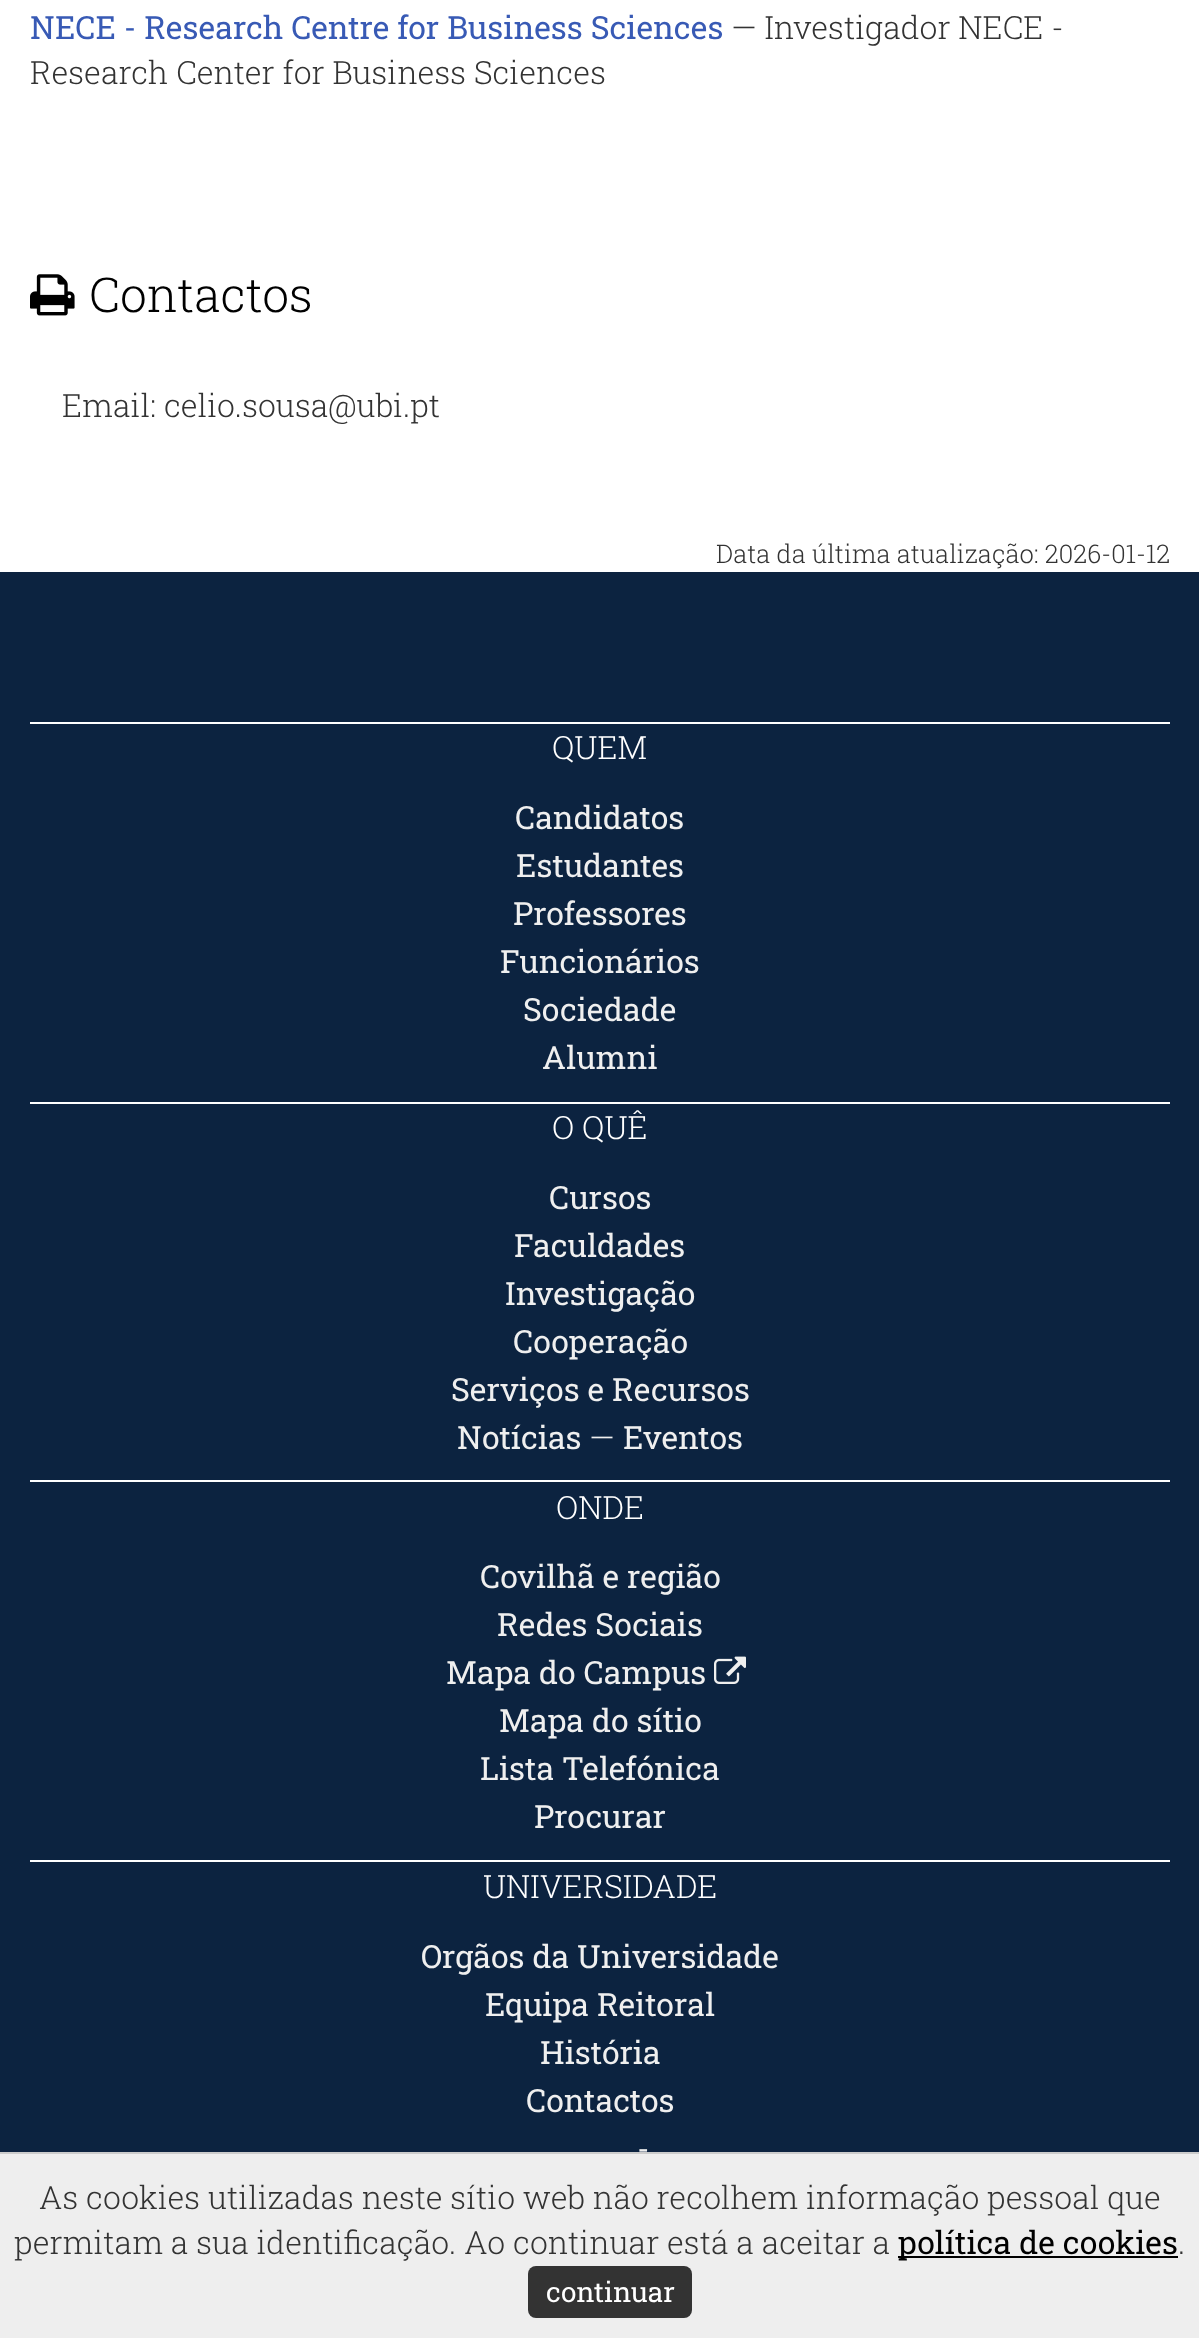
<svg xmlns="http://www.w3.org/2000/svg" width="1199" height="2338">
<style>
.a{font:32px Roboto Slab;fill:#385ab5}
.b{font:300 32px Roboto Slab;fill:#333}
.c{font:300 48px Roboto Slab;fill:#000}
.d{font:300 25.6px Roboto Slab;fill:#333}
.e{font:300 32px Roboto Slab;fill:#fff}
.f{font:32px Roboto Slab;fill:#efefef}
.g{font:300 32px Roboto Slab;fill:#efefef}
.h{font:32px Roboto Slab;fill:#000}
.i{font:28px Roboto Slab;fill:#fff}
</style>
<rect width="100%" height="100%" fill="#fff"/>
<image href="1.png" x="30" y="274" width="45" height="42"/>
<path fill="#0c2340" d="M0 572h1199v1580H0z"/>
<path fill="#fff" d="M30 722h1140v2H30z"/>
<path fill="#fff" d="M30 1102h1140v2H30z"/>
<path fill="#fff" d="M30 1480h1140v2H30z"/>
<image href="2.png" x="714" y="1656" width="32" height="28"/>
<path fill="#fff" d="M30 1860h1140v2H30z"/>
<path fill="#eee" d="M0 2154h1199v184H0z"/>
<path fill="#ccc" d="M0 2152h1199v2H0z"/>
<path fill="#000" d="M898 2256h280v2H898z"/>
<rect fill="#333" x="528" y="2266" width="164" height="52" rx="8"/>
<text class="a" x="30" y="39">NECE - Research Centre for Business Sciences</text>
<text class="b" x="731" y="39">— Investigador NECE -</text>
<text class="b" x="30" y="84">Research Center for Business Sciences</text>
<text class="c" x="89" y="312">Contactos</text>
<text class="b" x="62" y="417">Email: celio.sousa@ubi.pt</text>
<text class="d" x="716" y="563">Data da última atualização: 2026-01-12</text>
<text class="e" x="552" y="759">QUEM</text>
<text class="f" x="515" y="829">Candidatos</text>
<text class="f" x="516" y="877">Estudantes</text>
<text class="f" x="513" y="925">Professores</text>
<text class="f" x="500" y="973">Funcionários</text>
<text class="f" x="523" y="1021">Sociedade</text>
<text class="f" x="542" y="1069">Alumni</text>
<text class="e" x="552" y="1139">O QUÊ</text>
<text class="f" x="549" y="1209">Cursos</text>
<text class="f" x="514" y="1257">Faculdades</text>
<text class="f" x="505" y="1305">Investigação</text>
<text class="f" x="513" y="1353">Cooperação</text>
<text class="f" x="451" y="1401">Serviços e Recursos</text>
<text class="f" x="457" y="1449">Notícias</text>
<text class="g" x="589" y="1449">—</text>
<text class="f" x="623" y="1449">Eventos</text>
<text class="e" x="556" y="1519">ONDE</text>
<text class="f" x="480" y="1588">Covilhã e região</text>
<text class="f" x="497" y="1636">Redes Sociais</text>
<text class="f" x="446" y="1684">Mapa do Campus</text>
<text class="f" x="499" y="1732">Mapa do sítio</text>
<text class="f" x="480" y="1780">Lista Telefónica</text>
<text class="f" x="534" y="1828">Procurar</text>
<text class="e" x="483" y="1898">UNIVERSIDADE</text>
<text class="f" x="421" y="1968">Orgãos da Universidade</text>
<text class="f" x="485" y="2016">Equipa Reitoral</text>
<text class="f" x="540" y="2064">História</text>
<text class="f" x="526" y="2112">Contactos</text>
<text class="f" x="637" y="2160">-</text>
<text class="b" x="39" y="2209">As cookies utilizadas neste sítio web não recolhem informação pessoal que</text>
<text class="b" x="14" y="2254">permitam a sua identificação. Ao continuar está a aceitar a</text>
<text class="h" x="898" y="2254">política de cookies</text>
<text class="b" x="1178" y="2254">.</text>
<text class="i" x="546" y="2302">continuar</text>
</svg>
